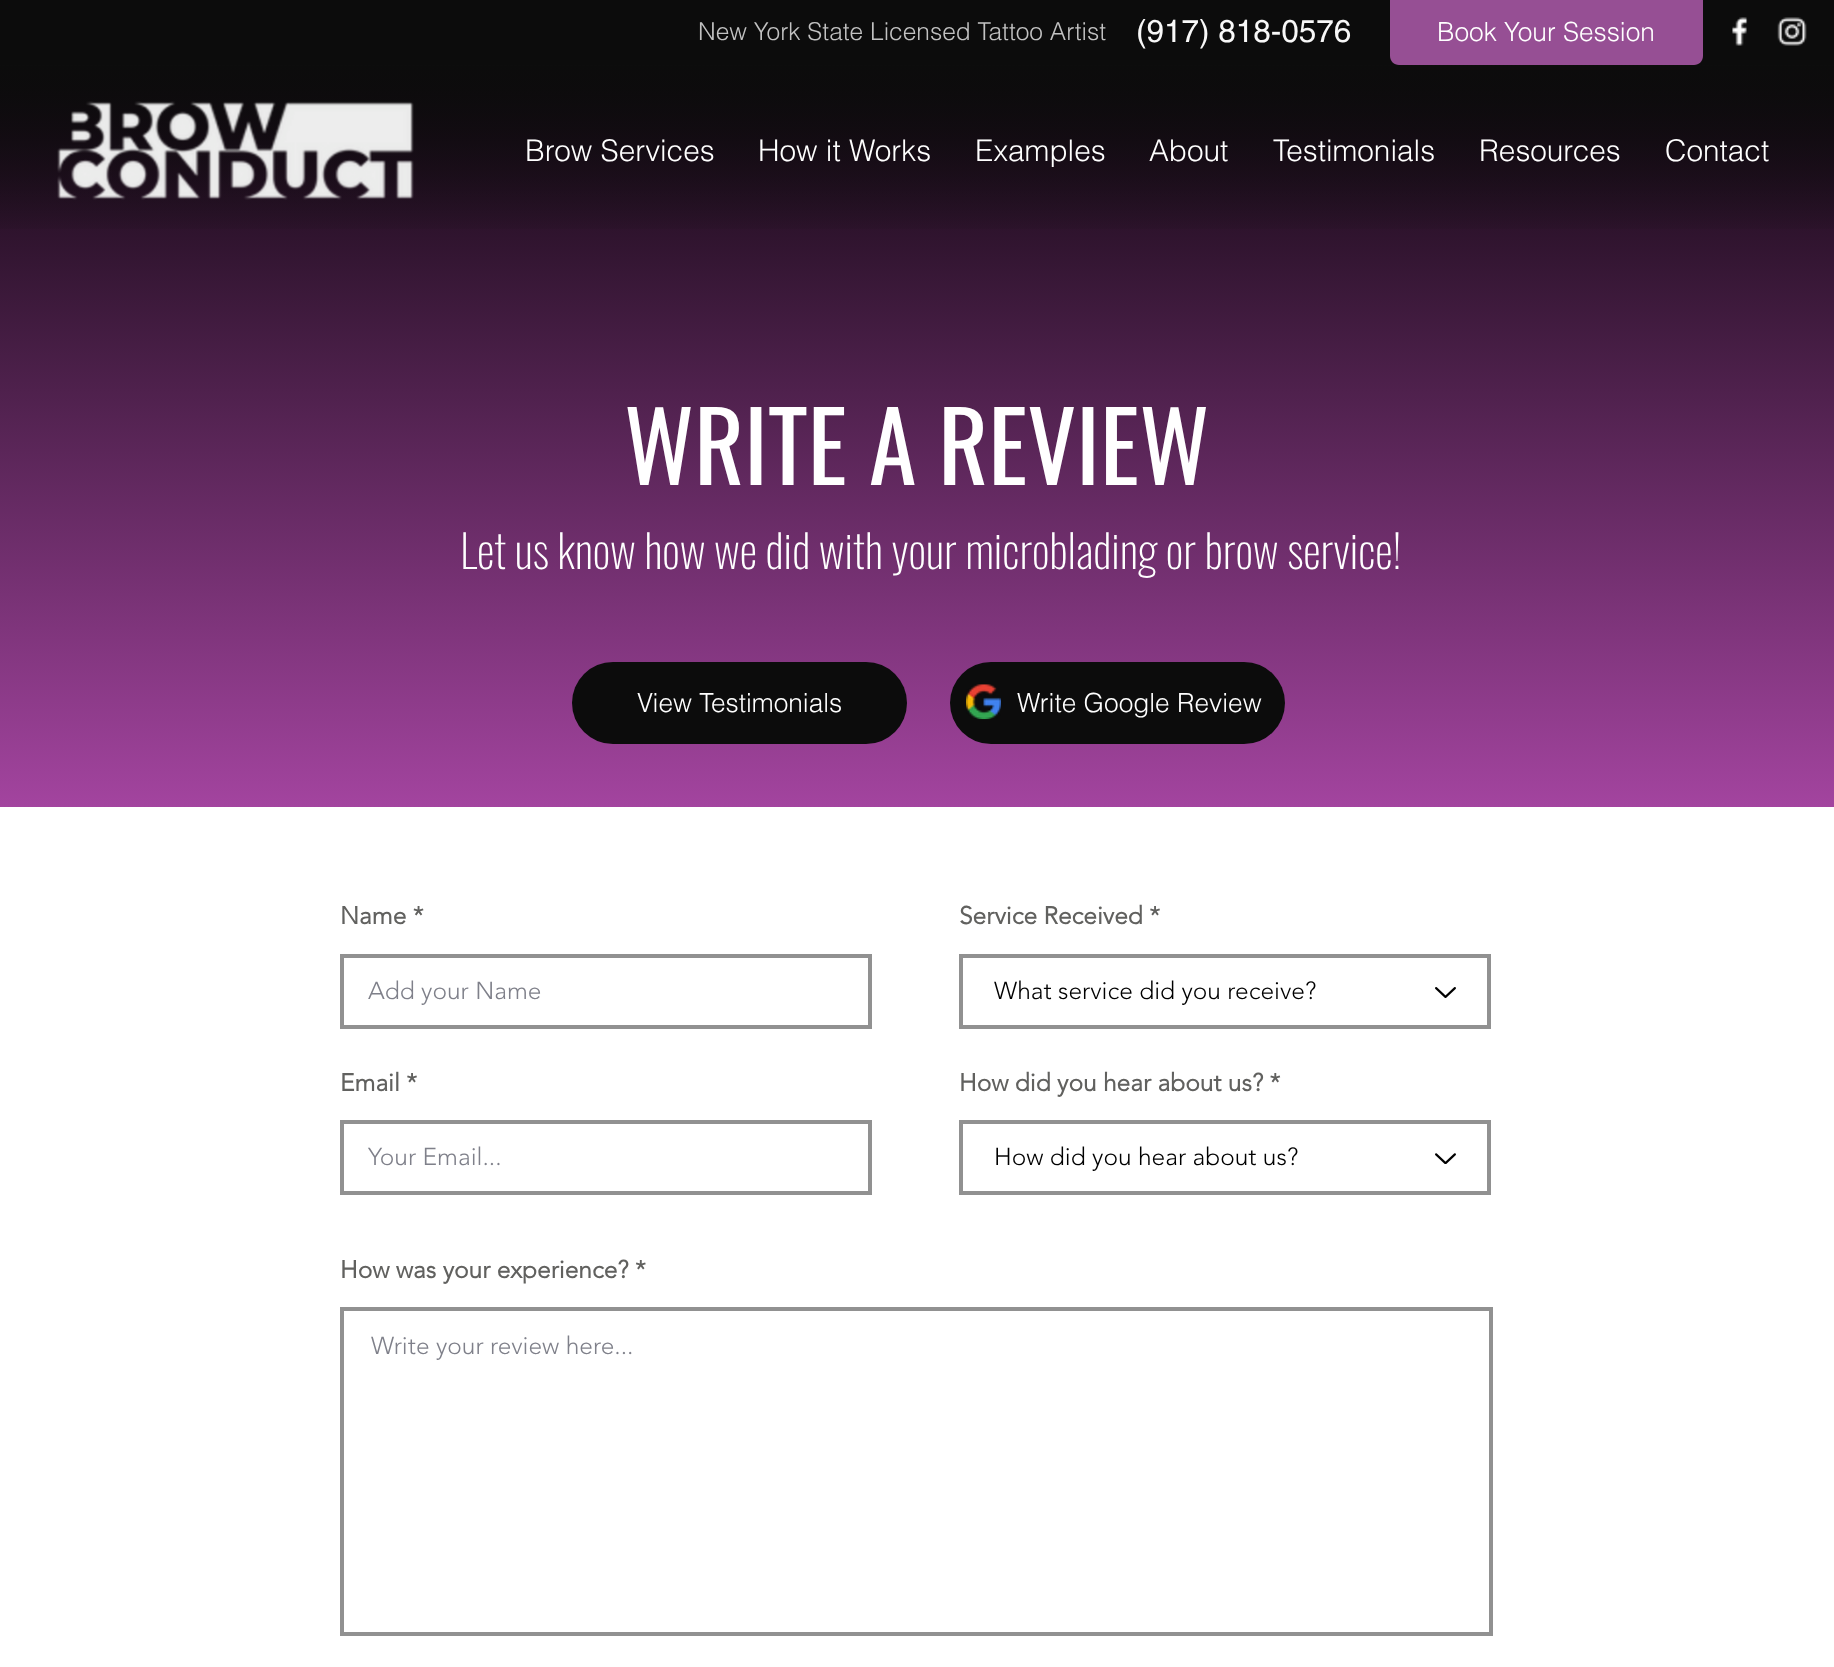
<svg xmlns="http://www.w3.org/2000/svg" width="1834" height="1667">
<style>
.a{font:300 24.5px helvetica;fill:#c2c2c2}
.b{font:31.5px helvetica;fill:#f8f8f8}
.c{font:300 26.25px helvetica;fill:#fff}
.d{font:300 29.75px helvetica;fill:#fff}
.e{font:96.25px Oswald;fill:#fff}
.f{font:200 45.5px Oswald;fill:#fff}
.g{font:bold 24.5px 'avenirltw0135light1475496';fill:#61615f}
.h{font:300 24.5px 'avenirltw0135light1475496';fill:#7f808a}
.i{font:300 24.5px 'avenirltw0135light1475496';fill:#000}
</style>
<defs>
<linearGradient id="g1" gradientUnits="userSpaceOnUse" x1="917" y1="807" x2="917" y2="0"><stop offset="0" stop-color="#a3449f"/><stop offset="1" stop-color="#000"/></linearGradient>
<linearGradient id="g2" gradientUnits="userSpaceOnUse" x1="917" y1="65" x2="917" y2="243"><stop offset="0" stop-color="#0c0c0c"/><stop offset="1" stop-color="#0c0c0c" stop-opacity="0"/></linearGradient>
</defs>
<rect width="100%" height="100%" fill="#fff"/>
<path fill="#0c0c0c" d="M0 0h1834v65H0z"/>
<path fill="#964f94" d="M1390 0h313v56c0 5-4 9-9 9h-295c-5 0-9-4-9-9z"/>
<image href="1.png" x="1732" y="17" width="16" height="29"/>
<image href="2.png" x="1777" y="17" width="30" height="29"/>
<path fill="url(#g1)" d="M0 66h1834v741H0z"/>
<path fill="url(#g2)" d="M0 65h1834v164H0z"/>
<image href="3.png" x="57" y="101" width="357" height="99"/>
<rect fill="#0c0c0c" x="572" y="662" width="335" height="82" rx="41"/>
<rect fill="#0c0c0c" x="950" y="662" width="335" height="82" rx="41"/>
<image href="4.png" x="966" y="684" width="35" height="36"/>
<path fill="none" stroke="#919191" stroke-width="4" d="M342 956h528v71H342z"/>
<path fill="none" stroke="#919191" stroke-width="4" d="M961 956h528v71H961z"/>
<image href="5.png" x="1435" y="987" width="21" height="11"/>
<path fill="none" stroke="#919191" stroke-width="4" d="M342 1122h528v71H342z"/>
<path fill="none" stroke="#919191" stroke-width="4" d="M961 1122h528v71H961z"/>
<image href="6.png" x="1435" y="1153" width="21" height="11"/>
<path fill="none" stroke="#919191" stroke-width="4" d="M342 1309h1149v325H342z"/>
<text class="a" x="698" y="40">New York State Licensed Tattoo Artist</text>
<text class="b" x="1136" y="42">(917) 818-0576</text>
<text class="c" x="1437" y="41">Book Your Session</text>
<text class="d" x="525" y="161">Brow Services</text>
<text class="d" x="758" y="161">How it Works</text>
<text class="d" x="975" y="161">Examples</text>
<text class="d" x="1149" y="161">About</text>
<text class="d" x="1273" y="161">Testimonials</text>
<text class="d" x="1479" y="161">Resources</text>
<text class="d" x="1665" y="161">Contact</text>
<text class="e" x="624" y="485">WRITE A REVIEW</text>
<text class="f" x="460" y="569">Let us know how we did with your microblading or brow service!</text>
<text class="c" x="637" y="712">View Testimonials</text>
<text class="c" x="1017" y="712">Write Google Review</text>
<text class="g" x="340" y="924">Name *</text>
<text class="h" x="368" y="999">Add your Name</text>
<text class="g" x="959" y="924">Service Received *</text>
<text class="i" x="994" y="999">What service did you receive?</text>
<text class="g" x="340" y="1091">Email *</text>
<text class="h" x="368" y="1165">Your Email...</text>
<text class="g" x="959" y="1091">How did you hear about us? *</text>
<text class="i" x="994" y="1165">How did you hear about us?</text>
<text class="g" x="340" y="1278">How was your experience? *</text>
<text class="h" x="371" y="1354">Write your review here...</text>
</svg>
